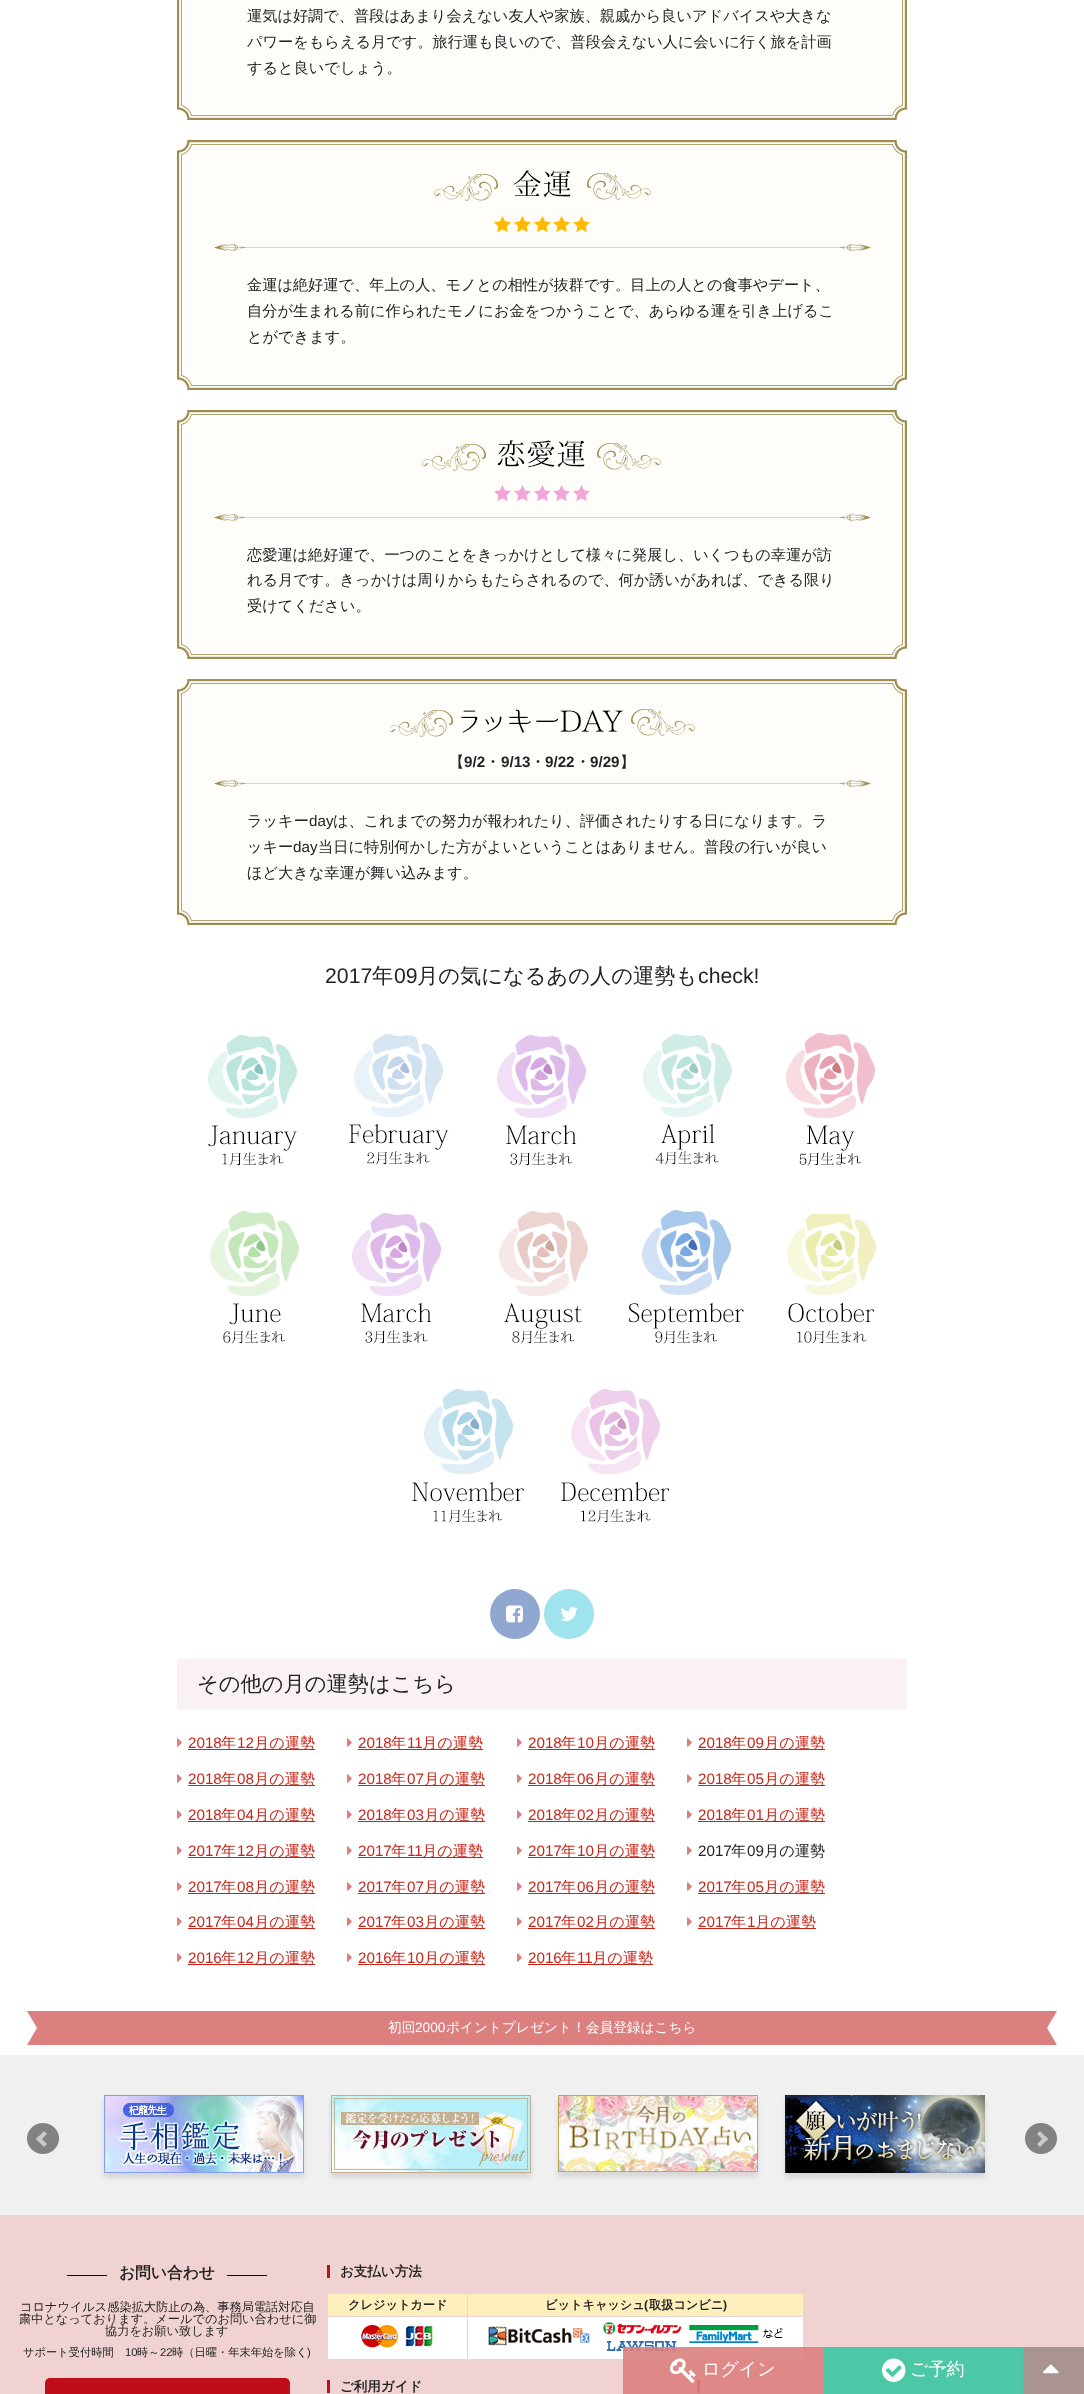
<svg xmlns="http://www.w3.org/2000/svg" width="1084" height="2394">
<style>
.a{font:500 15.2px WenQuanYi Zen Hei;fill:#232323}
.b{font:bold 15.2px Liberation Sans;fill:#232323}
.c{font:bold 15.2px WenQuanYi Zen Hei;fill:#232323}
.d{font:15.2px Liberation Sans;fill:#232323}
.e{font:21.25px Liberation Sans;fill:#232323}
.f{font:500 21.25px WenQuanYi Zen Hei;fill:#232323}
.g{font:15.2px Liberation Sans;fill:#c82518}
.h{font:500 15.2px WenQuanYi Zen Hei;fill:#c82518}
.i{font:500 13.7px WenQuanYi Zen Hei;fill:#fff}
.j{font:13.7px Liberation Sans;fill:#fff}
.k{font:bold 15.75px WenQuanYi Zen Hei;fill:#232323}
.l{font:500 12.2px WenQuanYi Zen Hei;fill:#232323}
.m{font:500 11.25px WenQuanYi Zen Hei;fill:#232323}
.n{font:11.25px Liberation Sans;fill:#232323}
.o{font:bold 13.5px WenQuanYi Zen Hei;fill:#232323}
.p{font:bold 12.2px WenQuanYi Zen Hei;fill:#232323}
.q{font:bold 12.2px Liberation Sans;fill:#232323}
.r{font:500 18px WenQuanYi Zen Hei;fill:#fff}
</style>
<rect width="100%" height="100%" fill="#fff"/>
<image href="1.png" x="177" y="0" width="730" height="105"/>
<image href="2.png" x="177" y="105" width="730" height="15"/>
<image href="3.png" x="177" y="155" width="730" height="220"/>
<image href="4.png" x="177" y="140" width="730" height="15"/>
<image href="2.png" x="177" y="375" width="730" height="15"/>
<image href="5.png" x="214" y="243" width="657" height="9"/>
<image href="6.png" x="434" y="170" width="217" height="31"/>
<image href="7.png" x="494" y="216" width="96" height="16"/>
<image href="8.png" x="177" y="425" width="730" height="219"/>
<image href="4.png" x="177" y="410" width="730" height="15"/>
<image href="2.png" x="177" y="644" width="730" height="15"/>
<image href="5.png" x="214" y="513" width="657" height="9"/>
<image href="9.png" x="422" y="440" width="239" height="31"/>
<image href="10.png" x="494" y="485" width="96" height="16"/>
<image href="11.png" x="177" y="694" width="730" height="216"/>
<image href="4.png" x="177" y="679" width="730" height="15"/>
<image href="2.png" x="177" y="910" width="730" height="15"/>
<image href="5.png" x="214" y="779" width="657" height="9"/>
<image href="12.png" x="390" y="709" width="305" height="28"/>
<image href="13.png" x="208" y="1035" width="89" height="131"/>
<image href="14.png" x="349" y="1034" width="100" height="131"/>
<image href="15.png" x="497" y="1035" width="89" height="131"/>
<image href="16.png" x="643" y="1034" width="89" height="131"/>
<image href="17.png" x="786" y="1033" width="89" height="133"/>
<image href="18.png" x="210" y="1211" width="89" height="133"/>
<image href="15.png" x="352" y="1213" width="89" height="131"/>
<image href="19.png" x="499" y="1211" width="89" height="133"/>
<image href="20.png" x="629" y="1210" width="115" height="134"/>
<image href="21.png" x="787" y="1214" width="89" height="130"/>
<image href="22.png" x="412" y="1389" width="112" height="134"/>
<image href="23.png" x="561" y="1389" width="109" height="134"/>
<circle fill="#8fa7d1" cx="515" cy="1614" r="25"/>
<image href="24.png" x="506" y="1605" width="17" height="18"/>
<circle fill="#9ee3ed" cx="569" cy="1614" r="25"/>
<image href="25.png" x="560" y="1606" width="18" height="15"/>
<path fill="#faf1f2" d="M177 1659h730v51H177z"/>
<image href="26.png" x="177" y="1738" width="5" height="9"/>
<path fill="#c82518" d="M188 1749h127v1H188z"/>
<image href="26.png" x="347" y="1738" width="5" height="9"/>
<path fill="#c82518" d="M358 1749h125v1H358z"/>
<image href="26.png" x="517" y="1738" width="5" height="9"/>
<path fill="#c82518" d="M528 1749h127v1H528z"/>
<image href="26.png" x="687" y="1738" width="5" height="9"/>
<path fill="#c82518" d="M698 1749h127v1H698z"/>
<image href="26.png" x="177" y="1774" width="5" height="9"/>
<path fill="#c82518" d="M188 1785h127v1H188z"/>
<image href="26.png" x="347" y="1774" width="5" height="9"/>
<path fill="#c82518" d="M358 1785h127v1H358z"/>
<image href="26.png" x="517" y="1774" width="5" height="9"/>
<path fill="#c82518" d="M528 1785h127v1H528z"/>
<image href="26.png" x="687" y="1774" width="5" height="9"/>
<path fill="#c82518" d="M698 1785h127v1H698z"/>
<image href="26.png" x="177" y="1810" width="5" height="9"/>
<path fill="#c82518" d="M188 1821h127v1H188z"/>
<image href="26.png" x="347" y="1810" width="5" height="9"/>
<path fill="#c82518" d="M358 1821h127v1H358z"/>
<image href="26.png" x="517" y="1810" width="5" height="9"/>
<path fill="#c82518" d="M528 1821h127v1H528z"/>
<image href="26.png" x="687" y="1810" width="5" height="9"/>
<path fill="#c82518" d="M698 1821h127v1H698z"/>
<image href="26.png" x="177" y="1846" width="5" height="9"/>
<path fill="#c82518" d="M188 1857h127v1H188z"/>
<image href="26.png" x="347" y="1846" width="5" height="9"/>
<path fill="#c82518" d="M358 1857h125v1H358z"/>
<image href="26.png" x="517" y="1846" width="5" height="9"/>
<path fill="#c82518" d="M528 1857h127v1H528z"/>
<image href="26.png" x="687" y="1846" width="5" height="9"/>
<image href="26.png" x="177" y="1882" width="5" height="9"/>
<path fill="#c82518" d="M188 1893h127v1H188z"/>
<image href="26.png" x="347" y="1882" width="5" height="9"/>
<path fill="#c82518" d="M358 1893h127v1H358z"/>
<image href="26.png" x="517" y="1882" width="5" height="9"/>
<path fill="#c82518" d="M528 1893h127v1H528z"/>
<image href="26.png" x="687" y="1882" width="5" height="9"/>
<path fill="#c82518" d="M698 1893h127v1H698z"/>
<image href="26.png" x="177" y="1917" width="5" height="9"/>
<path fill="#c82518" d="M188 1928h127v1H188z"/>
<image href="26.png" x="347" y="1917" width="5" height="9"/>
<path fill="#c82518" d="M358 1928h127v1H358z"/>
<image href="26.png" x="517" y="1917" width="5" height="9"/>
<path fill="#c82518" d="M528 1928h127v1H528z"/>
<image href="26.png" x="687" y="1917" width="5" height="9"/>
<path fill="#c82518" d="M698 1928h118v1H698z"/>
<image href="26.png" x="177" y="1953" width="5" height="9"/>
<path fill="#c82518" d="M188 1964h127v1H188z"/>
<image href="26.png" x="347" y="1953" width="5" height="9"/>
<path fill="#c82518" d="M358 1964h127v1H358z"/>
<image href="26.png" x="517" y="1953" width="5" height="9"/>
<path fill="#c82518" d="M528 1964h125v1H528z"/>
<path fill="#db7f7f" d="M27 2011h1030v34H27z"/>
<path fill="#fff" d="M27 2045v-34l10 17z"/>
<path fill="#fff" d="M1057 2011v34l-10-17z"/>
<path fill="#f0f0f0" d="M0 2055h1084v160H0z"/>
<path fill="#0000001a" filter="blur(2.5px)" d="M104 2100h200v78H104z"/>
<image href="27.png" x="104" y="2095" width="200" height="78"/>
<path fill="#0000001a" filter="blur(2.5px)" d="M331 2100h200v78H331z"/>
<image href="28.png" x="331" y="2095" width="200" height="78"/>
<path fill="#0000001a" filter="blur(2.5px)" d="M558 2100h200v77H558z"/>
<image href="29.png" x="558" y="2095" width="200" height="77"/>
<path fill="#0000001a" filter="blur(2.5px)" d="M785 2100h200v78H785z"/>
<image href="30.png" x="785" y="2095" width="200" height="78"/>
<image href="31.png" x="27" y="2123" width="32" height="31"/>
<image href="32.png" x="1025" y="2123" width="32" height="31"/>
<path fill="#f1d2d2" d="M0 2215h1084v179H0z"/>
<path fill="#000" d="M67 2275h40v1H67z"/>
<path fill="#000" d="M227 2275h40v1H227z"/>
<rect fill="#be0e1a" x="45" y="2378" width="245" height="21" rx="5"/>
<path fill="#be0e1a" d="M327 2265h3v13H327z"/>
<path fill="#fdf0bd" d="M328 2294h139v22H328z"/>
<path fill="#fdf0bd" d="M468 2294h335v22H468z"/>
<path fill="#fff" d="M328 2317h139v42H328z"/>
<image href="33.png" x="361" y="2325" width="72" height="23"/>
<path fill="#fff" d="M468 2317h335v42H468z"/>
<image href="34.png" x="488" y="2322" width="295" height="29"/>
<path fill="#be0e1a" d="M327 2380h3v13H327z"/>
<path fill="#be0e1a" d="M697 2380h3v13H697z"/>
<path fill="#db7f7fe6" d="M623 2347h200v47H623z"/>
<image href="35.png" x="670" y="2358" width="26" height="25"/>
<path fill="#4dc8a6" d="M823 2347h200v47H823z"/>
<image href="36.png" x="882" y="2358" width="24" height="24"/>
<path fill="#a99393" d="M1023 2347h61v47H1023z"/>
<image href="37.png" x="1043" y="2364" width="16" height="10"/>
<text class="a" x="247" y="21">運気は好調で、普段はあまり会えない友人や家族、親戚から良いアドバイスや大きな</text>
<text class="a" x="247" y="47">パワーをもらえる月です。旅行運も良いので、普段会えない人に会いに行く旅を計画</text>
<text class="a" x="247" y="73">すると良いでしょう。</text>
<text class="a" x="247" y="290">金運は絶好運で、年上の人、モノとの相性が抜群です。目上の人との食事やデート、</text>
<text class="a" x="247" y="316">自分が生まれる前に作られたモノにお金をつかうことで、あらゆる運を引き上げるこ</text>
<text class="a" x="247" y="342">とができます。</text>
<text class="a" x="247" y="560">恋愛運は絶好運で、一つのことをきっかけとして様々に発展し、いくつもの幸運が訪</text>
<text class="a" x="247" y="585">れる月です。きっかけは周りからもたらされるので、何か誘いがあれば、できる限り</text>
<text class="a" x="247" y="611">受けてください。</text>
<text class="a" x="449" y="767">【</text>
<text class="b" x="464" y="767">9/2</text>
<text class="c" x="485" y="767">・</text>
<text class="b" x="501" y="767">9/13</text>
<text class="c" x="530" y="767">・</text>
<text class="b" x="545" y="767">9/22</text>
<text class="c" x="575" y="767">・</text>
<text class="b" x="590" y="767">9/29</text>
<text class="a" x="620" y="767">】</text>
<text class="a" x="247" y="826">ラッキー</text>
<text class="d" x="309" y="826">day</text>
<text class="a" x="333" y="826">は、これまでの努力が報われたり、評価されたりする日になります。ラ</text>
<text class="a" x="247" y="852">ッキー</text>
<text class="d" x="293" y="852">day</text>
<text class="a" x="318" y="852">当日に特別何かした方がよいということはありません。普段の行いが良い</text>
<text class="a" x="247" y="878">ほど大きな幸運が舞い込みます。</text>
<text class="e" x="325" y="983">2017</text>
<text class="f" x="372" y="983">年</text>
<text class="e" x="394" y="983">09</text>
<text class="f" x="417" y="983">月の気になるあの人の運勢も</text>
<text class="e" x="698" y="983">check!</text>
<text class="f" x="197" y="1691">その他の月の運勢はこちら</text>
<text class="g" x="188" y="1748">2018</text>
<text class="h" x="221" y="1748">年</text>
<text class="g" x="237" y="1748">12</text>
<text class="h" x="254" y="1748">月の運勢</text>
<text class="g" x="358" y="1748">2018</text>
<text class="h" x="391" y="1748">年</text>
<text class="g" x="407" y="1748">11</text>
<text class="h" x="422" y="1748">月の運勢</text>
<text class="g" x="528" y="1748">2018</text>
<text class="h" x="561" y="1748">年</text>
<text class="g" x="577" y="1748">10</text>
<text class="h" x="594" y="1748">月の運勢</text>
<text class="g" x="698" y="1748">2018</text>
<text class="h" x="731" y="1748">年</text>
<text class="g" x="747" y="1748">09</text>
<text class="h" x="764" y="1748">月の運勢</text>
<text class="g" x="188" y="1784">2018</text>
<text class="h" x="221" y="1784">年</text>
<text class="g" x="237" y="1784">08</text>
<text class="h" x="254" y="1784">月の運勢</text>
<text class="g" x="358" y="1784">2018</text>
<text class="h" x="391" y="1784">年</text>
<text class="g" x="407" y="1784">07</text>
<text class="h" x="424" y="1784">月の運勢</text>
<text class="g" x="528" y="1784">2018</text>
<text class="h" x="561" y="1784">年</text>
<text class="g" x="577" y="1784">06</text>
<text class="h" x="594" y="1784">月の運勢</text>
<text class="g" x="698" y="1784">2018</text>
<text class="h" x="731" y="1784">年</text>
<text class="g" x="747" y="1784">05</text>
<text class="h" x="764" y="1784">月の運勢</text>
<text class="g" x="188" y="1820">2018</text>
<text class="h" x="221" y="1820">年</text>
<text class="g" x="237" y="1820">04</text>
<text class="h" x="254" y="1820">月の運勢</text>
<text class="g" x="358" y="1820">2018</text>
<text class="h" x="391" y="1820">年</text>
<text class="g" x="407" y="1820">03</text>
<text class="h" x="424" y="1820">月の運勢</text>
<text class="g" x="528" y="1820">2018</text>
<text class="h" x="561" y="1820">年</text>
<text class="g" x="577" y="1820">02</text>
<text class="h" x="594" y="1820">月の運勢</text>
<text class="g" x="698" y="1820">2018</text>
<text class="h" x="731" y="1820">年</text>
<text class="g" x="747" y="1820">01</text>
<text class="h" x="764" y="1820">月の運勢</text>
<text class="g" x="188" y="1856">2017</text>
<text class="h" x="221" y="1856">年</text>
<text class="g" x="237" y="1856">12</text>
<text class="h" x="254" y="1856">月の運勢</text>
<text class="g" x="358" y="1856">2017</text>
<text class="h" x="391" y="1856">年</text>
<text class="g" x="407" y="1856">11</text>
<text class="h" x="422" y="1856">月の運勢</text>
<text class="g" x="528" y="1856">2017</text>
<text class="h" x="561" y="1856">年</text>
<text class="g" x="577" y="1856">10</text>
<text class="h" x="594" y="1856">月の運勢</text>
<text class="d" x="698" y="1856">2017</text>
<text class="a" x="731" y="1856">年</text>
<text class="d" x="747" y="1856">09</text>
<text class="a" x="764" y="1856">月の運勢</text>
<text class="g" x="188" y="1892">2017</text>
<text class="h" x="221" y="1892">年</text>
<text class="g" x="237" y="1892">08</text>
<text class="h" x="254" y="1892">月の運勢</text>
<text class="g" x="358" y="1892">2017</text>
<text class="h" x="391" y="1892">年</text>
<text class="g" x="407" y="1892">07</text>
<text class="h" x="424" y="1892">月の運勢</text>
<text class="g" x="528" y="1892">2017</text>
<text class="h" x="561" y="1892">年</text>
<text class="g" x="577" y="1892">06</text>
<text class="h" x="594" y="1892">月の運勢</text>
<text class="g" x="698" y="1892">2017</text>
<text class="h" x="731" y="1892">年</text>
<text class="g" x="747" y="1892">05</text>
<text class="h" x="764" y="1892">月の運勢</text>
<text class="g" x="188" y="1927">2017</text>
<text class="h" x="221" y="1927">年</text>
<text class="g" x="237" y="1927">04</text>
<text class="h" x="254" y="1927">月の運勢</text>
<text class="g" x="358" y="1927">2017</text>
<text class="h" x="391" y="1927">年</text>
<text class="g" x="407" y="1927">03</text>
<text class="h" x="424" y="1927">月の運勢</text>
<text class="g" x="528" y="1927">2017</text>
<text class="h" x="561" y="1927">年</text>
<text class="g" x="577" y="1927">02</text>
<text class="h" x="594" y="1927">月の運勢</text>
<text class="g" x="698" y="1927">2017</text>
<text class="h" x="731" y="1927">年</text>
<text class="g" x="747" y="1927">1</text>
<text class="h" x="755" y="1927">月の運勢</text>
<text class="g" x="188" y="1963">2016</text>
<text class="h" x="221" y="1963">年</text>
<text class="g" x="237" y="1963">12</text>
<text class="h" x="254" y="1963">月の運勢</text>
<text class="g" x="358" y="1963">2016</text>
<text class="h" x="391" y="1963">年</text>
<text class="g" x="407" y="1963">10</text>
<text class="h" x="424" y="1963">月の運勢</text>
<text class="g" x="528" y="1963">2016</text>
<text class="h" x="561" y="1963">年</text>
<text class="g" x="577" y="1963">11</text>
<text class="h" x="592" y="1963">月の運勢</text>
<text class="i" x="388" y="2032">初回</text>
<text class="j" x="415" y="2032">2000</text>
<text class="i" x="446" y="2032">ポイントプレゼント！会員登録はこちら</text>
<text class="k" x="119" y="2278">お問い合わせ</text>
<text class="l" x="20" y="2311">コロナウイルス感染拡大防止の為、事務局電話対応自</text>
<text class="l" x="19" y="2323">粛中となっております。メールでのお問い合わせに御</text>
<text class="l" x="105" y="2335">協力をお願い致します</text>
<text class="m" x="23" y="2356">サポート受付時間</text>
<text class="n" x="125" y="2356">10</text>
<text class="m" x="137" y="2356">時～</text>
<text class="n" x="160" y="2356">22</text>
<text class="m" x="172" y="2356">時（日曜・年末年始を除く</text>
<text class="n" x="307" y="2356">)</text>
<text class="o" x="340" y="2276">お支払い方法</text>
<text class="p" x="348" y="2309">クレジットカード</text>
<text class="p" x="545" y="2309">ビットキャッシュ</text>
<text class="q" x="644" y="2309">(</text>
<text class="p" x="649" y="2309">取扱コンビニ</text>
<text class="q" x="723" y="2309">)</text>
<text class="o" x="340" y="2391">ご利用ガイド</text>
<text class="r" x="702" y="2375">ログイン</text>
<text class="r" x="910" y="2375">ご予約</text>
</svg>
